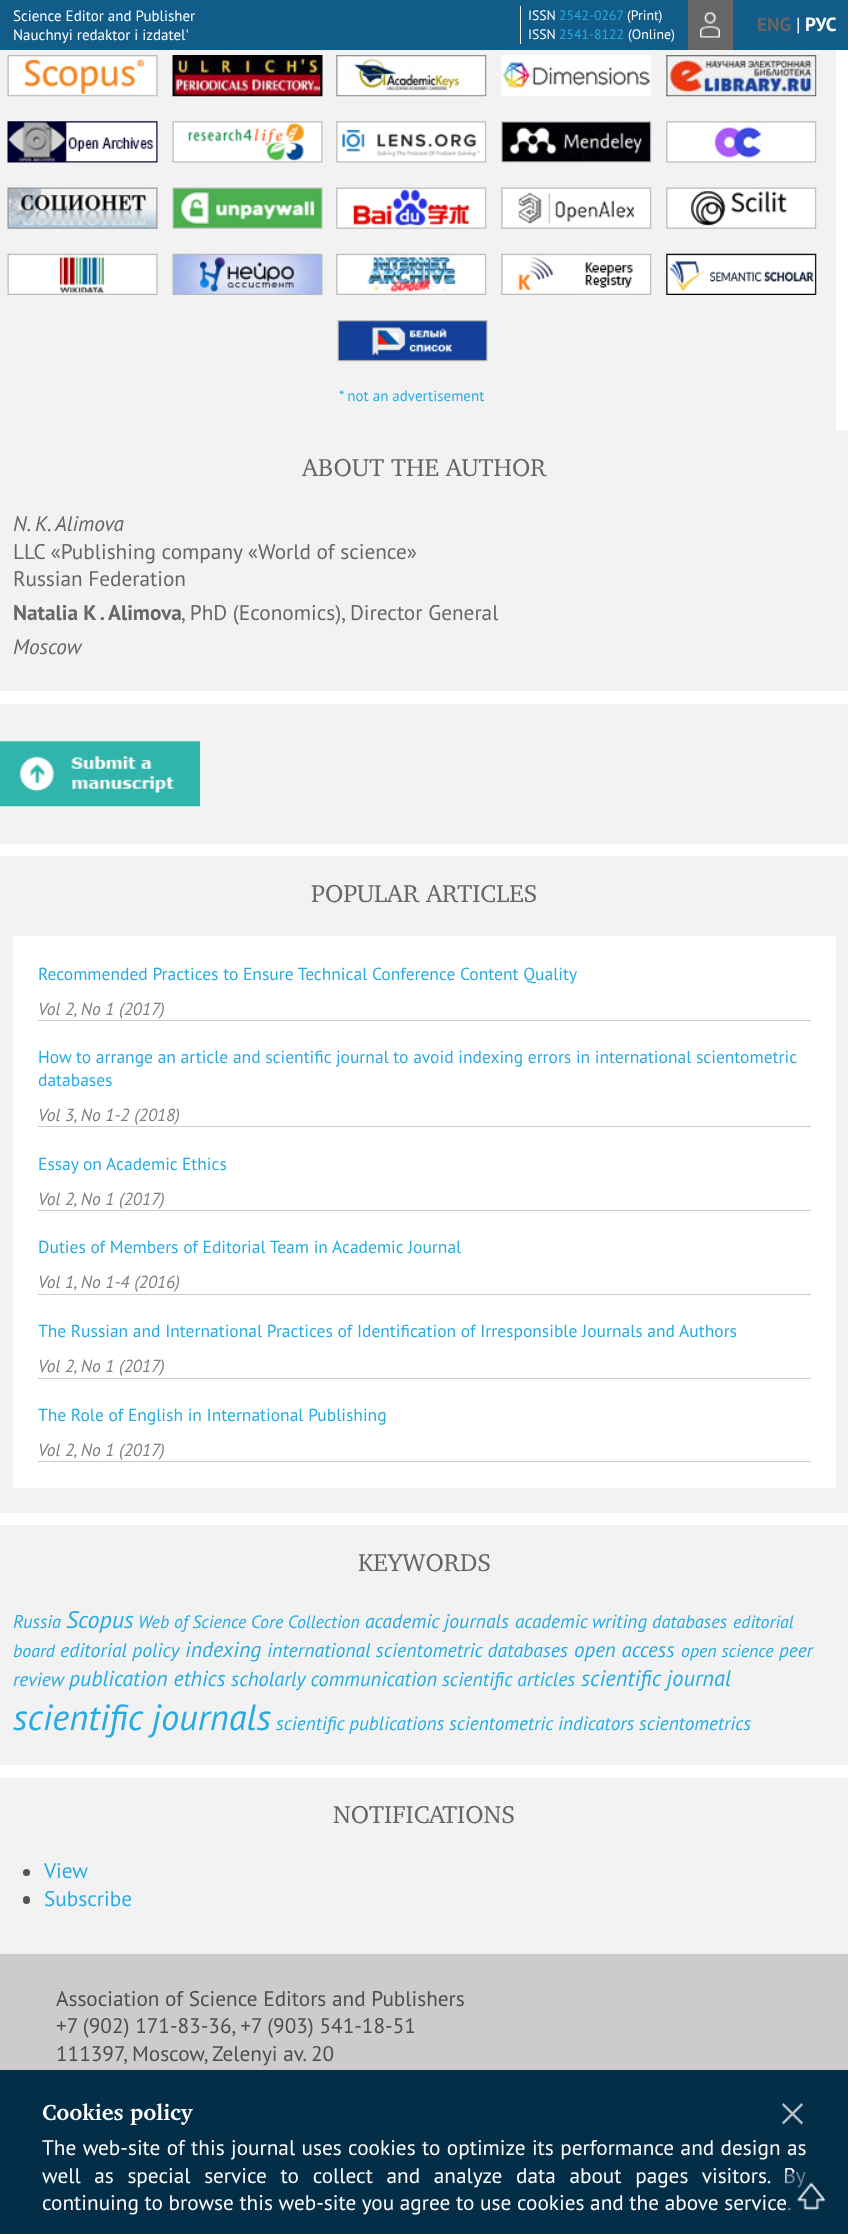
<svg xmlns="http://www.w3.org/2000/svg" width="848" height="2234">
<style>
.a{font:15px PT Sans;fill:#fff}
.b{font:13.75px PT Sans;fill:#fff}
.c{font:13.75px PT Sans;fill:#29abe2}
.d{font:bold 19px PT Sans;fill:#666}
.e{font:19px PT Sans;fill:#fff}
.f{font:bold 19px PT Sans;fill:#fff}
.g{font:15px PT Sans;fill:#29abe2}
.h{font:25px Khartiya;fill:#666}
.i{font:italic 21.25px PT Sans;fill:#666}
.j{font:21.25px PT Sans;fill:#666}
.k{font:bold 21.25px PT Sans;fill:#666}
.l{font:17.5px PT Sans;fill:#29abe2}
.m{font:italic 17.5px PT Sans;fill:#808080}
.n{font:italic 18.5px PT Sans;fill:#29abe2}
.o{font:italic 24px PT Sans;fill:#29abe2}
.p{font:italic 17.9px PT Sans;fill:#29abe2}
.q{font:italic 19.75px PT Sans;fill:#29abe2}
.r{font:italic 19.25px PT Sans;fill:#29abe2}
.s{font:italic 21.75px PT Sans;fill:#29abe2}
.t{font:italic 21px PT Sans;fill:#29abe2}
.u{font:italic 20.5px PT Sans;fill:#29abe2}
.v{font:italic 22.5px PT Sans;fill:#29abe2}
.w{font:italic 36.5px PT Sans;fill:#29abe2}
.x{font:21.25px PT Sans;fill:#29abe2}
.y{font:21.25px PT Sans;fill:#4d4d4d}
.z{font:bold 22.5px Khartiya;fill:#fff}
.a1{font:21.25px PT Sans;fill:#fff}
</style>
<rect width="100%" height="100%" fill="#fff"/>
<path fill="#115c88" d="M0 0h848v50H0z"/>
<path fill="#fff" d="M520 6h1v38H520z"/>
<path fill="#666" d="M688 0h45v50H688z"/>
<image href="1.png" x="699" y="12" width="21" height="26"/>
<path fill="#f2f2f2" d="M0 50h836v380H0z"/>
<image href="2.png" x="7" y="55" width="151" height="42"/>
<image href="3.png" x="172" y="55" width="151" height="42"/>
<image href="4.png" x="336" y="55" width="151" height="42"/>
<image href="5.png" x="501" y="55" width="150" height="41"/>
<image href="6.png" x="666" y="55" width="151" height="42"/>
<image href="7.png" x="7" y="121" width="151" height="42"/>
<image href="8.png" x="172" y="121" width="151" height="42"/>
<image href="9.png" x="336" y="121" width="151" height="42"/>
<image href="10.png" x="501" y="121" width="151" height="42"/>
<image href="11.png" x="666" y="121" width="151" height="42"/>
<image href="12.png" x="7" y="187" width="151" height="42"/>
<image href="13.png" x="172" y="187" width="151" height="42"/>
<image href="14.png" x="336" y="187" width="151" height="42"/>
<image href="15.png" x="501" y="187" width="151" height="42"/>
<image href="16.png" x="666" y="187" width="151" height="42"/>
<image href="17.png" x="7" y="253" width="151" height="42"/>
<image href="18.png" x="172" y="253" width="151" height="42"/>
<image href="19.png" x="336" y="253" width="151" height="42"/>
<image href="20.png" x="501" y="253" width="151" height="42"/>
<image href="21.png" x="666" y="253" width="151" height="42"/>
<image href="22.png" x="337" y="320" width="151" height="42"/>
<path fill="#f2f2f2" d="M0 430h848v261H0z"/>
<path fill="#f2f2f2" d="M0 704h848v140H0z"/>
<image href="23.png" x="0" y="741" width="200" height="66"/>
<path fill="#f2f2f2" d="M0 856h848v657H0z"/>
<path fill="#fff" d="M13 936h823v552H13z"/>
<path fill="#ccc" d="M38 1020h773v1H38z"/>
<path fill="#ccc" d="M38 1126h773v1H38z"/>
<path fill="#ccc" d="M38 1210h773v1H38z"/>
<path fill="#ccc" d="M38 1294h773v1H38z"/>
<path fill="#ccc" d="M38 1378h773v1H38z"/>
<path fill="#ccc" d="M38 1461h773v1H38z"/>
<path fill="#f2f2f2" d="M0 1525h848v240H0z"/>
<path fill="#f2f2f2" d="M0 1778h848v176H0z"/>
<circle fill="#555" cx="26.5" cy="1872.5" r="3.5"/>
<rect fill="#555" x="23" y="1896" width="7" height="8" rx="3.5"/>
<path fill="#ccc" d="M0 1954h848v116H0z"/>
<path fill="#042e47" d="M0 2070h848v164H0z"/>
<path fill="#b4c0c8" d="M801.5 2103l1.5 2l-19.5 19.5l-1.5-2z"/>
<path fill="#b4c0c8" d="M782 2105l1.5-2l19.5 19.5l-1.5 2z"/>
<text class="a" x="13" y="21">Science Editor and Publisher</text>
<text class="a" x="13" y="40">Nauchnyi redaktor i izdatel'</text>
<text class="b" x="528" y="20">ISSN</text>
<text class="c" x="559" y="20">2542-0267</text>
<text class="b" x="627" y="20">(Print)</text>
<text class="b" x="528" y="39">ISSN</text>
<text class="c" x="559" y="39">2541-8122</text>
<text class="b" x="628" y="39">(Online)</text>
<text class="d" x="757" y="31">ENG</text>
<text class="e" x="796" y="31">|</text>
<text class="f" x="805" y="31">РУС</text>
<text class="g" x="339" y="401">* not an advertisement</text>
<text class="h" x="302" y="476">ABOUT THE AUTHOR</text>
<text class="i" x="13" y="531">N. K. Alimova</text>
<text class="j" x="13" y="559">LLC «Publishing company «World of science»</text>
<text class="j" x="13" y="586">Russian Federation</text>
<text class="k" x="13" y="620">Natalia K . Alimova</text>
<text class="j" x="181" y="620">, PhD (Economics), Director General</text>
<text class="i" x="13" y="654">Moscow</text>
<text class="h" x="311" y="902">POPULAR ARTICLES</text>
<text class="l" x="38" y="980">Recommended Practices to Ensure Technical Conference Content Quality</text>
<text class="m" x="38" y="1015">Vol 2, No 1 (2017)</text>
<text class="l" x="38" y="1063">How to arrange an article and scientific journal to avoid indexing errors in international scientometric</text>
<text class="l" x="38" y="1086">databases</text>
<text class="m" x="38" y="1121">Vol 3, No 1-2 (2018)</text>
<text class="l" x="38" y="1170">Essay on Academic Ethics</text>
<text class="m" x="38" y="1205">Vol 2, No 1 (2017)</text>
<text class="l" x="38" y="1253">Duties of Members of Editorial Team in Academic Journal</text>
<text class="m" x="38" y="1288">Vol 1, No 1-4 (2016)</text>
<text class="l" x="38" y="1337">The Russian and International Practices of Identification of Irresponsible Journals and Authors</text>
<text class="m" x="38" y="1372">Vol 2, No 1 (2017)</text>
<text class="l" x="38" y="1421">The Role of English in International Publishing</text>
<text class="m" x="38" y="1456">Vol 2, No 1 (2017)</text>
<text class="h" x="358" y="1571">KEYWORDS</text>
<text class="n" x="13" y="1628">Russia</text>
<text class="o" x="66" y="1628">Scopus</text>
<text class="p" x="138" y="1628">Web of Science Core Collection</text>
<text class="q" x="365" y="1628">academic journals</text>
<text class="r" x="515" y="1628">academic writing</text>
<text class="n" x="652" y="1628">databases</text>
<text class="p" x="733" y="1628">editorial</text>
<text class="p" x="13" y="1657">board</text>
<text class="q" x="60" y="1657">editorial policy</text>
<text class="s" x="185" y="1657">indexing</text>
<text class="q" x="267" y="1657">international scientometric databases</text>
<text class="t" x="574" y="1657">open access</text>
<text class="p" x="681" y="1657">open science</text>
<text class="r" x="779" y="1657">peer</text>
<text class="r" x="13" y="1686">review</text>
<text class="s" x="69" y="1686">publication ethics</text>
<text class="u" x="231" y="1686">scholarly communication</text>
<text class="q" x="442" y="1686">scientific articles</text>
<text class="v" x="581" y="1686">scientific journal</text>
<text class="w" x="13" y="1730">scientific journals</text>
<text class="r" x="276" y="1730">scientific publications</text>
<text class="r" x="449" y="1730">scientometric indicators</text>
<text class="r" x="639" y="1730">scientometrics</text>
<text class="h" x="333" y="1823">NOTIFICATIONS</text>
<text class="x" x="44" y="1878">View</text>
<text class="x" x="44" y="1906">Subscribe</text>
<text class="y" x="56" y="2006">Association of Science Editors and Publishers</text>
<text class="y" x="56" y="2033">+7 (902) 171-83-36, +7 (903) 541-18-51</text>
<text class="y" x="56" y="2061">111397, Moscow, Zelenyi av. 20</text>
<text class="z" x="42" y="2120">Cookies policy</text>
<text class="a1" x="42" y="2155" word-spacing="0.75">The web-site of this journal uses cookies to optimize its performance and design as</text>
<text class="a1" x="42" y="2183" word-spacing="8">well as special service to collect and analyze data about pages visitors. By</text>
<text class="a1" x="42" y="2210">continuing to browse this web-site you agree to use cookies and the above service.</text>
<image href="24.png" x="786" y="2172" width="40" height="39"/>
</svg>
